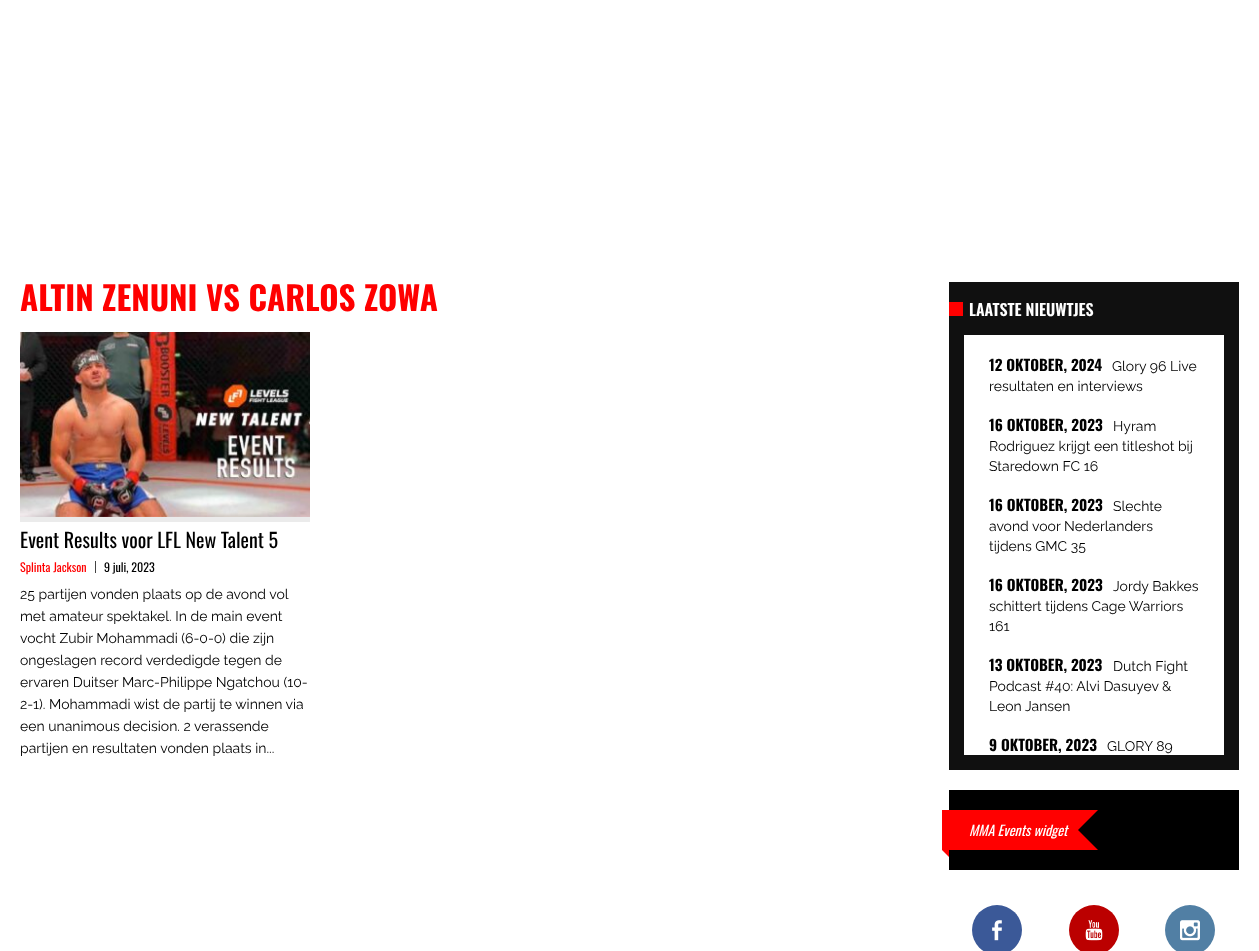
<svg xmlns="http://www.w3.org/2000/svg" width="1259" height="951">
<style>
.a{font:bold 33px Oswald;fill:#f00}
.b{font:20px Oswald;fill:#000}
.c{font:12px Oswald;fill:#f00}
.d{font:12px Oswald;fill:#000}
.e{font:100 14px Raleway;fill:#000}
.f{font:600 16px Oswald;fill:#fff}
.g{font:bold 15px Oswald;fill:#000}
.h{font:italic 14px Oswald;fill:#fff}
</style>
<rect width="100%" height="100%" fill="#fff"/>
<path fill="#ebebeb" d="M20 516h290v6H20z"/>
<image href="1.png" x="20" y="332" width="290" height="185"/>
<path fill="#444" d="M95 561h1v12H95z"/>
<path fill="#101010" d="M949 282h290v38H949z"/>
<path fill="#f00" d="M949 302h14v14H949z"/>
<path fill="none" stroke="#101010" stroke-width="15" d="M956.5 327.5h275v435H956.5z"/>
<path fill="#000" d="M949 790h290v80H949z"/>
<path fill="#f00" d="M942 810h136v40H942z"/>
<path fill="#f00" d="M1078 810h20l-20 20zm20 40h-20v-20z"/>
<path fill="#f00" d="M942 850h7v7z"/>
<circle fill="#3b5998" cx="997" cy="930" r="25"/>
<image href="2.png" x="992" y="920" width="10" height="21"/>
<circle fill="#b00" cx="1094" cy="930" r="25"/>
<image href="3.png" x="1085" y="920" width="18" height="21"/>
<circle fill="#517fa4" cx="1190" cy="930" r="25"/>
<image href="4.png" x="1180" y="920" width="20" height="21"/>
<text class="a" x="20" y="311">ALTIN ZENUNI VS CARLOS ZOWA</text>
<text class="b" x="20" y="548">Event Results voor LFL New Talent 5</text>
<text class="c" x="20" y="572">Splinta Jackson</text>
<text class="d" x="104" y="572">9 juli, 2023</text>
<text class="e" x="20" y="599">25 partijen vonden plaats op de avond vol</text>
<text class="e" x="20" y="621">met amateur spektakel. In de main event</text>
<text class="e" x="20" y="643">vocht Zubir Mohammadi (6-0-0) die zijn</text>
<text class="e" x="20" y="665">ongeslagen record verdedigde tegen de</text>
<text class="e" x="20" y="687">ervaren Duitser Marc-Philippe Ngatchou (10-</text>
<text class="e" x="20" y="709">2-1). Mohammadi wist de partij te winnen via</text>
<text class="e" x="20" y="731">een unanimous decision. 2 verassende</text>
<text class="e" x="20" y="753">partijen en resultaten vonden plaats in...</text>
<text class="f" x="969" y="316">LAATSTE NIEUWTJES</text>
<text class="g" x="989" y="371">12 OKTOBER, 2024</text>
<text class="e" x="1112" y="371">Glory 96 Live</text>
<text class="e" x="989" y="391">resultaten en interviews</text>
<text class="g" x="989" y="431">16 OKTOBER, 2023</text>
<text class="e" x="1113" y="431">Hyram</text>
<text class="e" x="989" y="451">Rodriguez krijgt een titleshot bij</text>
<text class="e" x="989" y="471">Staredown FC 16</text>
<text class="g" x="989" y="511">16 OKTOBER, 2023</text>
<text class="e" x="1113" y="511">Slechte</text>
<text class="e" x="989" y="531">avond voor Nederlanders</text>
<text class="e" x="989" y="551">tijdens GMC 35</text>
<text class="g" x="989" y="591">16 OKTOBER, 2023</text>
<text class="e" x="1113" y="591">Jordy Bakkes</text>
<text class="e" x="989" y="611">schittert tijdens Cage Warriors</text>
<text class="e" x="989" y="631">161</text>
<text class="g" x="989" y="671">13 OKTOBER, 2023</text>
<text class="e" x="1113" y="671">Dutch Fight</text>
<text class="e" x="989" y="691">Podcast #40: Alvi Dasuyev &amp;</text>
<text class="e" x="989" y="711">Leon Jansen</text>
<text class="g" x="989" y="751">9 OKTOBER, 2023</text>
<text class="e" x="1107" y="751">GLORY 89</text>
<text class="h" x="969" y="836">MMA Events widget</text>
</svg>
